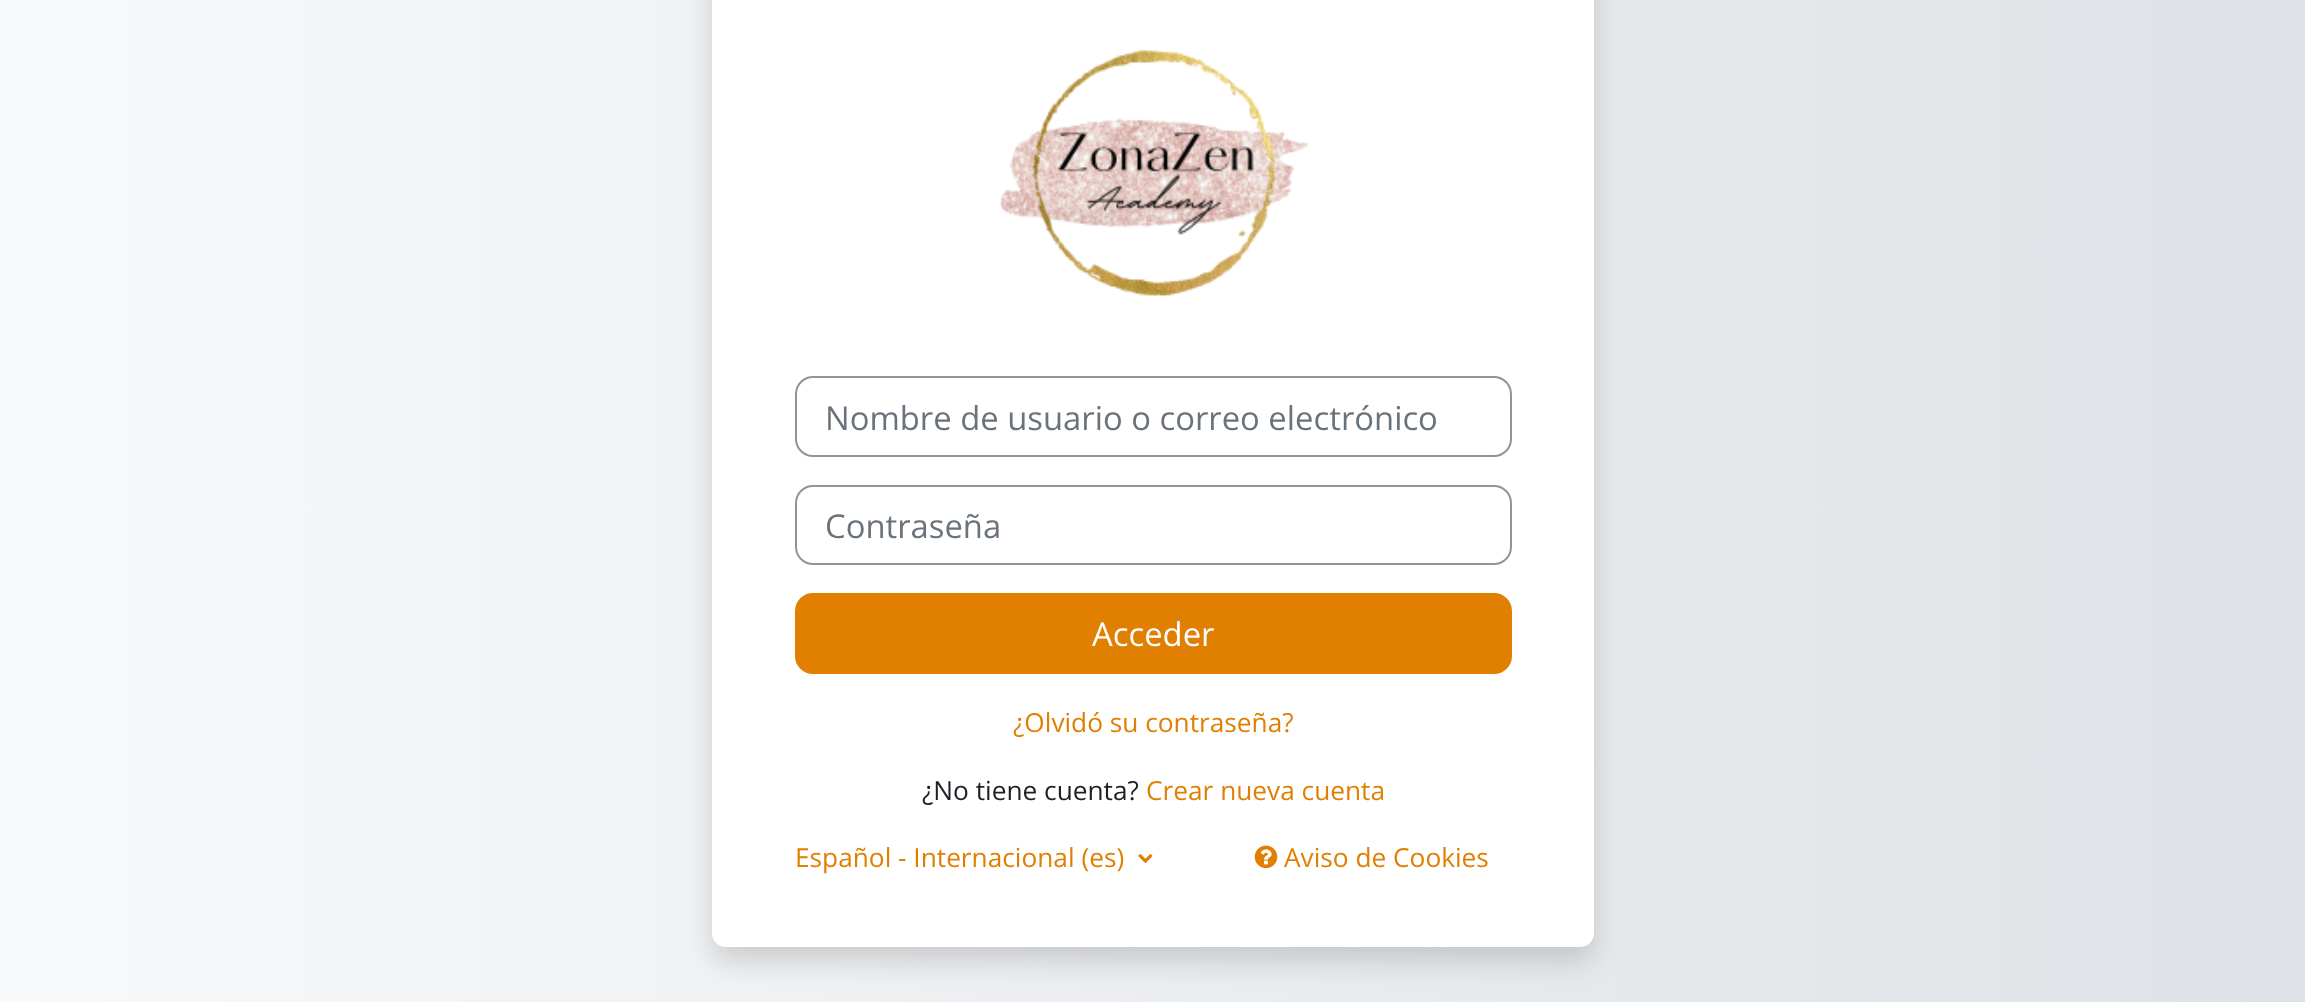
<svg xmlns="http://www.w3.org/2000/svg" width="2305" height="1002">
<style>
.a{font:32.8px Open Sans;fill:#6a737b}
.b{font:32.8px Open Sans;fill:#fff}
.c{font:26.25px Open Sans;fill:#e07f00}
.d{font:26.25px Open Sans;fill:#1d2125}
</style>
<defs>
<linearGradient id="g1" gradientUnits="userSpaceOnUse" x1="0" y1="472" x2="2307" y2="472"><stop offset="0" stop-color="#f8f9fa"/><stop offset="1" stop-color="#dee2e6"/></linearGradient>
</defs>
<rect width="100%" height="100%" fill="#fff"/>
<path fill="url(#g1)" d="M0 0h2305v1002H0z"/>
<rect fill="#00000026" filter="blur(14px)" x="712" y="-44" width="882" height="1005" rx="14"/>
<rect fill="#fff" x="712" y="-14" width="882" height="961" rx="14"/>
<image href="1.png" x="1000" y="49" width="308" height="248"/>
<rect fill="none" stroke="#8f959e" stroke-width="2" x="796" y="377" width="715" height="79" rx="17"/>
<rect fill="none" stroke="#8f959e" stroke-width="2" x="796" y="486" width="715" height="78" rx="17"/>
<rect fill="#e07f00" stroke="#e07f00" stroke-width="2" x="796" y="594" width="715" height="79" rx="17"/>
<image href="2.png" x="1138" y="854" width="15" height="9"/>
<image href="3.png" x="1254" y="845" width="24" height="24"/>
<text class="a" x="825" y="430">Nombre de usuario o correo electrónico</text>
<text class="a" x="825" y="538">Contraseña</text>
<text class="b" x="1092" y="646">Acceder</text>
<text class="c" x="1013" y="732">¿Olvidó su contraseña?</text>
<text class="d" x="922" y="800">¿No tiene cuenta?</text>
<text class="c" x="1146" y="800">Crear nueva cuenta</text>
<text class="c" x="795" y="867">Español - Internacional (es)</text>
<text class="c" x="1284" y="867">Aviso de Cookies</text>
</svg>
